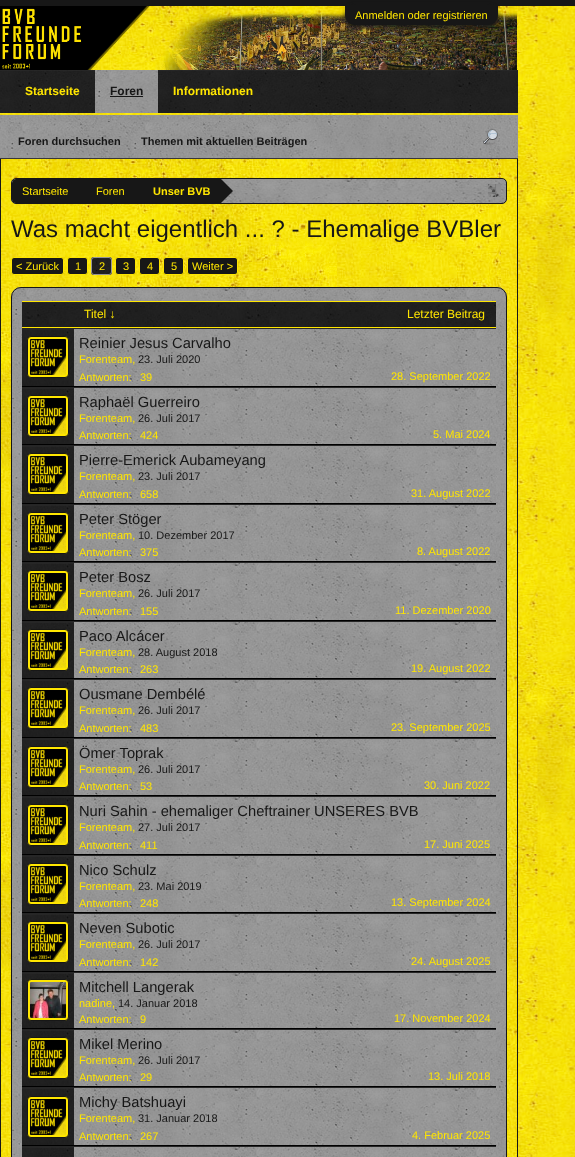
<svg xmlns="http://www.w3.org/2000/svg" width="575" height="1157">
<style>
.a{font:11px Liberation Sans;fill:#ffe600}
.b{font:bold 12px Liberation Sans;fill:#171717}
.c{font:bold 11px Liberation Sans;fill:#171717}
.d{font:bold 12px Liberation Sans;fill:#ffe600}
.e{font:bold 11px Liberation Sans;fill:#ffe600}
.f{font:24px Liberation Sans;fill:#171717}
.g{font:12px Liberation Sans;fill:#ffe600}
.h{font:14.7px Liberation Sans;fill:#171717}
.i{font:11px Liberation Sans;fill:#171717}
</style>
<defs>
<clipPath id="clip1"><rect x="12" y="179" width="494" height="24" rx="4"/></clipPath>
</defs>
<rect width="100%" height="100%" fill="#fff"/>
<image href="1.png" x="0" y="6" width="575" height="1151"/>
<path fill="#171717" d="M0 0h575v6H0z"/>
<image href="2.png" x="90" y="6" width="428" height="64"/>
<image href="3.png" x="0" y="6" width="517" height="64"/>
<rect fill="#171717" filter="blur(2.5px)" x="345" y="7" width="153" height="20" rx="10"/>
<path fill="#171717" d="M345 5h153v10c0 5.5-4.5 10-10 10h-133c-5.5 0-10-4.5-10-10z"/>
<image href="4.png" x="0" y="70" width="518" height="43"/>
<image href="5.png" x="95" y="70" width="63" height="43"/>
<path fill="#171717" d="M110 96h33v1H110z"/>
<image href="6.png" x="0" y="115" width="518" height="43"/>
<path fill="#171717" d="M517 158h1v999H517z"/>
<path fill="#171717" d="M0 158h1v999H0z"/>
<path fill="#393737" d="M0 158h518v1H0z"/>
<image href="7.png" x="8" y="122" width="123" height="36"/>
<image href="8.png" x="131" y="122" width="186" height="36"/>
<image href="9.png" x="483" y="129" width="15" height="16"/>
<image href="10.png" x="1" y="159" width="516" height="998"/>
<image href="11.png" x="11" y="179" width="496" height="25"/>
<rect fill="none" stroke="#171717" x="11.5" y="178.5" width="495" height="25" rx="4.5"/>
<g clip-path="url(#clip1)">
<path fill="#171717" d="M16 179h62v25h-62c-2 0-4-2-4-4v-17c0-2 2-4 4-4z"/>
</g>
<path fill="#171717" d="M78 179h143v24H78z"/>
<path fill="#171717" d="M221 203v-24l12 12z"/>
<image href="12.png" x="488" y="184" width="13" height="13"/>
<rect fill="#171717" stroke="#ffe600" x="11.5" y="257.5" width="52" height="17" rx="2.5"/>
<rect fill="#171717" stroke="#ffe600" x="67.5" y="257.5" width="20" height="17" rx="2.5"/>
<image href="13.png" x="91" y="257" width="21" height="18"/>
<rect fill="none" stroke="#969696" x="91.5" y="257.5" width="20" height="17" rx="2.5"/>
<rect fill="#171717" stroke="#ffe600" x="115.5" y="257.5" width="20" height="17" rx="2.5"/>
<rect fill="#171717" stroke="#ffe600" x="139.5" y="257.5" width="20" height="17" rx="2.5"/>
<rect fill="#171717" stroke="#ffe600" x="163.5" y="257.5" width="20" height="17" rx="2.5"/>
<rect fill="#171717" stroke="#ffe600" x="187.5" y="257.5" width="50" height="17" rx="2.5"/>
<image href="14.png" x="11" y="287" width="496" height="870"/>
<rect fill="none" stroke="#171717" x="11.5" y="287.5" width="495" height="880" rx="9.5"/>
<image href="15.png" x="22" y="302" width="474" height="25"/>
<path fill="#ffe600" d="M22 301h474v1H22z"/>
<path fill="#ffe600" d="M22 327h474v1H22z"/>
<image href="16.png" x="74" y="329" width="422" height="57"/>
<path fill="#262626" d="M22 328h474v1H22z"/>
<path fill="#000" d="M22 386h474v1H22z"/>
<image href="17.png" x="22" y="329" width="52" height="57"/>
<rect fill="#ffe600" stroke="#171717" x="27.5" y="336.5" width="41" height="41" rx="3.5"/>
<image href="18.png" x="30" y="339" width="36" height="36"/>
<image href="19.png" x="74" y="388" width="422" height="56"/>
<path fill="#262626" d="M22 387h474v1H22z"/>
<path fill="#000" d="M22 444h474v1H22z"/>
<image href="20.png" x="22" y="388" width="52" height="56"/>
<rect fill="#ffe600" stroke="#171717" x="27.5" y="395.5" width="41" height="41" rx="3.5"/>
<image href="18.png" x="30" y="398" width="36" height="36"/>
<image href="16.png" x="74" y="446" width="422" height="57"/>
<path fill="#262626" d="M22 445h474v1H22z"/>
<path fill="#000" d="M22 503h474v1H22z"/>
<image href="17.png" x="22" y="446" width="52" height="57"/>
<rect fill="#ffe600" stroke="#171717" x="27.5" y="453.5" width="41" height="41" rx="3.5"/>
<image href="18.png" x="30" y="456" width="36" height="36"/>
<image href="19.png" x="74" y="505" width="422" height="56"/>
<path fill="#262626" d="M22 504h474v1H22z"/>
<path fill="#000" d="M22 561h474v1H22z"/>
<image href="20.png" x="22" y="505" width="52" height="56"/>
<rect fill="#ffe600" stroke="#171717" x="27.5" y="512.5" width="41" height="41" rx="3.5"/>
<image href="18.png" x="30" y="515" width="36" height="36"/>
<image href="16.png" x="74" y="563" width="422" height="57"/>
<path fill="#262626" d="M22 562h474v1H22z"/>
<path fill="#000" d="M22 620h474v1H22z"/>
<image href="17.png" x="22" y="563" width="52" height="57"/>
<rect fill="#ffe600" stroke="#171717" x="27.5" y="570.5" width="41" height="41" rx="3.5"/>
<image href="18.png" x="30" y="573" width="36" height="36"/>
<image href="19.png" x="74" y="622" width="422" height="56"/>
<path fill="#262626" d="M22 621h474v1H22z"/>
<path fill="#000" d="M22 678h474v1H22z"/>
<image href="20.png" x="22" y="622" width="52" height="56"/>
<rect fill="#ffe600" stroke="#171717" x="27.5" y="629.5" width="41" height="41" rx="3.5"/>
<image href="18.png" x="30" y="632" width="36" height="36"/>
<image href="16.png" x="74" y="680" width="422" height="57"/>
<path fill="#262626" d="M22 679h474v1H22z"/>
<path fill="#000" d="M22 737h474v1H22z"/>
<image href="17.png" x="22" y="680" width="52" height="57"/>
<rect fill="#ffe600" stroke="#171717" x="27.5" y="687.5" width="41" height="41" rx="3.5"/>
<image href="18.png" x="30" y="690" width="36" height="36"/>
<image href="19.png" x="74" y="739" width="422" height="56"/>
<path fill="#262626" d="M22 738h474v1H22z"/>
<path fill="#000" d="M22 795h474v1H22z"/>
<image href="20.png" x="22" y="739" width="52" height="56"/>
<rect fill="#ffe600" stroke="#171717" x="27.5" y="746.5" width="41" height="41" rx="3.5"/>
<image href="18.png" x="30" y="749" width="36" height="36"/>
<image href="16.png" x="74" y="797" width="422" height="57"/>
<path fill="#262626" d="M22 796h474v1H22z"/>
<path fill="#000" d="M22 854h474v1H22z"/>
<image href="17.png" x="22" y="797" width="52" height="57"/>
<rect fill="#ffe600" stroke="#171717" x="27.5" y="804.5" width="41" height="41" rx="3.5"/>
<image href="18.png" x="30" y="807" width="36" height="36"/>
<image href="19.png" x="74" y="856" width="422" height="56"/>
<path fill="#262626" d="M22 855h474v1H22z"/>
<path fill="#000" d="M22 912h474v1H22z"/>
<image href="20.png" x="22" y="856" width="52" height="56"/>
<rect fill="#ffe600" stroke="#171717" x="27.5" y="863.5" width="41" height="41" rx="3.5"/>
<image href="18.png" x="30" y="866" width="36" height="36"/>
<image href="16.png" x="74" y="914" width="422" height="57"/>
<path fill="#262626" d="M22 913h474v1H22z"/>
<path fill="#000" d="M22 971h474v1H22z"/>
<image href="17.png" x="22" y="914" width="52" height="57"/>
<rect fill="#ffe600" stroke="#171717" x="27.5" y="921.5" width="41" height="41" rx="3.5"/>
<image href="18.png" x="30" y="924" width="36" height="36"/>
<image href="21.png" x="74" y="973" width="422" height="55"/>
<path fill="#262626" d="M22 972h474v1H22z"/>
<path fill="#000" d="M22 1028h474v1H22z"/>
<image href="22.png" x="22" y="973" width="52" height="55"/>
<rect fill="#ffe600" stroke="#171717" x="27.5" y="979.5" width="41" height="41" rx="3.5"/>
<image href="23.png" x="30" y="982" width="36" height="36"/>
<image href="19.png" x="74" y="1030" width="422" height="56"/>
<path fill="#262626" d="M22 1029h474v1H22z"/>
<path fill="#000" d="M22 1086h474v1H22z"/>
<image href="20.png" x="22" y="1030" width="52" height="56"/>
<rect fill="#ffe600" stroke="#171717" x="27.5" y="1037.5" width="41" height="41" rx="3.5"/>
<image href="18.png" x="30" y="1040" width="36" height="36"/>
<image href="16.png" x="74" y="1088" width="422" height="57"/>
<path fill="#262626" d="M22 1087h474v1H22z"/>
<path fill="#000" d="M22 1145h474v1H22z"/>
<image href="17.png" x="22" y="1088" width="52" height="57"/>
<rect fill="#ffe600" stroke="#171717" x="27.5" y="1096.5" width="41" height="41" rx="3.5"/>
<image href="18.png" x="30" y="1099" width="36" height="36"/>
<image href="24.png" x="74" y="1147" width="422" height="10"/>
<path fill="#262626" d="M22 1146h474v1H22z"/>
<image href="25.png" x="22" y="1147" width="52" height="10"/>
<text class="a" x="355" y="19">Anmelden oder registrieren</text>
<text class="b" x="110" y="95">Foren</text>
<text class="c" x="18" y="145">Foren durchsuchen</text>
<text class="c" x="141" y="145">Themen mit aktuellen Beiträgen</text>
<text class="d" x="25" y="95">Startseite</text>
<text class="d" x="173" y="95">Informationen</text>
<text class="a" x="22" y="195">Startseite</text>
<text class="a" x="96" y="195">Foren</text>
<text class="e" x="153" y="195">Unser BVB</text>
<text class="f" x="11" y="237">Was macht eigentlich ... ? - Ehemalige BVBler</text>
<text class="a" x="16" y="270">&lt; Zurück</text>
<text class="a" x="75" y="270">1</text>
<text class="a" x="99" y="270">2</text>
<text class="a" x="123" y="270">3</text>
<text class="a" x="147" y="270">4</text>
<text class="a" x="171" y="270">5</text>
<text class="a" x="192" y="270">Weiter &gt;</text>
<text class="g" x="84" y="318">Titel ↓</text>
<text class="g" x="407" y="318">Letzter Beitrag</text>
<text class="h" x="79" y="348">Reinier Jesus Carvalho</text>
<text class="a" x="79" y="363">Forenteam,</text>
<text class="i" x="138" y="363">23. Juli 2020</text>
<text class="a" x="79" y="381">Antworten:</text>
<text class="a" x="140" y="381">39</text>
<text class="a" x="391" y="380">28. September 2022</text>
<text class="h" x="79" y="407">Raphaël Guerreiro</text>
<text class="a" x="79" y="422">Forenteam,</text>
<text class="i" x="138" y="422">26. Juli 2017</text>
<text class="a" x="79" y="439">Antworten:</text>
<text class="a" x="140" y="439">424</text>
<text class="a" x="433" y="438">5. Mai 2024</text>
<text class="h" x="79" y="465">Pierre-Emerick Aubameyang</text>
<text class="a" x="79" y="480">Forenteam,</text>
<text class="i" x="138" y="480">23. Juli 2017</text>
<text class="a" x="79" y="498">Antworten:</text>
<text class="a" x="140" y="498">658</text>
<text class="a" x="411" y="497">31. August 2022</text>
<text class="h" x="79" y="524">Peter Stöger</text>
<text class="a" x="79" y="539">Forenteam,</text>
<text class="i" x="138" y="539">10. Dezember 2017</text>
<text class="a" x="79" y="556">Antworten:</text>
<text class="a" x="140" y="556">375</text>
<text class="a" x="417" y="555">8. August 2022</text>
<text class="h" x="79" y="582">Peter Bosz</text>
<text class="a" x="79" y="597">Forenteam,</text>
<text class="i" x="138" y="597">26. Juli 2017</text>
<text class="a" x="79" y="615">Antworten:</text>
<text class="a" x="140" y="615">155</text>
<text class="a" x="395" y="614">11. Dezember 2020</text>
<text class="h" x="79" y="641">Paco Alcácer</text>
<text class="a" x="79" y="656">Forenteam,</text>
<text class="i" x="138" y="656">28. August 2018</text>
<text class="a" x="79" y="673">Antworten:</text>
<text class="a" x="140" y="673">263</text>
<text class="a" x="411" y="672">19. August 2022</text>
<text class="h" x="79" y="699">Ousmane Dembélé</text>
<text class="a" x="79" y="714">Forenteam,</text>
<text class="i" x="138" y="714">26. Juli 2017</text>
<text class="a" x="79" y="732">Antworten:</text>
<text class="a" x="140" y="732">483</text>
<text class="a" x="391" y="731">23. September 2025</text>
<text class="h" x="79" y="758">Ömer Toprak</text>
<text class="a" x="79" y="773">Forenteam,</text>
<text class="i" x="138" y="773">26. Juli 2017</text>
<text class="a" x="79" y="790">Antworten:</text>
<text class="a" x="140" y="790">53</text>
<text class="a" x="424" y="789">30. Juni 2022</text>
<text class="h" x="79" y="816">Nuri Sahin - ehemaliger Cheftrainer UNSERES BVB</text>
<text class="a" x="79" y="831">Forenteam,</text>
<text class="i" x="138" y="831">27. Juli 2017</text>
<text class="a" x="79" y="849">Antworten:</text>
<text class="a" x="140" y="849">411</text>
<text class="a" x="424" y="848">17. Juni 2025</text>
<text class="h" x="79" y="875">Nico Schulz</text>
<text class="a" x="79" y="890">Forenteam,</text>
<text class="i" x="138" y="890">23. Mai 2019</text>
<text class="a" x="79" y="907">Antworten:</text>
<text class="a" x="140" y="907">248</text>
<text class="a" x="391" y="906">13. September 2024</text>
<text class="h" x="79" y="933">Neven Subotic</text>
<text class="a" x="79" y="948">Forenteam,</text>
<text class="i" x="138" y="948">26. Juli 2017</text>
<text class="a" x="79" y="966">Antworten:</text>
<text class="a" x="140" y="966">142</text>
<text class="a" x="411" y="965">24. August 2025</text>
<text class="h" x="79" y="992">Mitchell Langerak</text>
<text class="a" x="79" y="1007">nadine,</text>
<text class="i" x="118" y="1007">14. Januar 2018</text>
<text class="a" x="79" y="1023">Antworten:</text>
<text class="a" x="140" y="1023">9</text>
<text class="a" x="394" y="1022">17. November 2024</text>
<text class="h" x="79" y="1049">Mikel Merino</text>
<text class="a" x="79" y="1064">Forenteam,</text>
<text class="i" x="138" y="1064">26. Juli 2017</text>
<text class="a" x="79" y="1081">Antworten:</text>
<text class="a" x="140" y="1081">29</text>
<text class="a" x="428" y="1080">13. Juli 2018</text>
<text class="h" x="79" y="1107">Michy Batshuayi</text>
<text class="a" x="79" y="1122">Forenteam,</text>
<text class="i" x="138" y="1122">31. Januar 2018</text>
<text class="a" x="79" y="1140">Antworten:</text>
<text class="a" x="140" y="1140">267</text>
<text class="a" x="412" y="1139">4. Februar 2025</text>
</svg>
